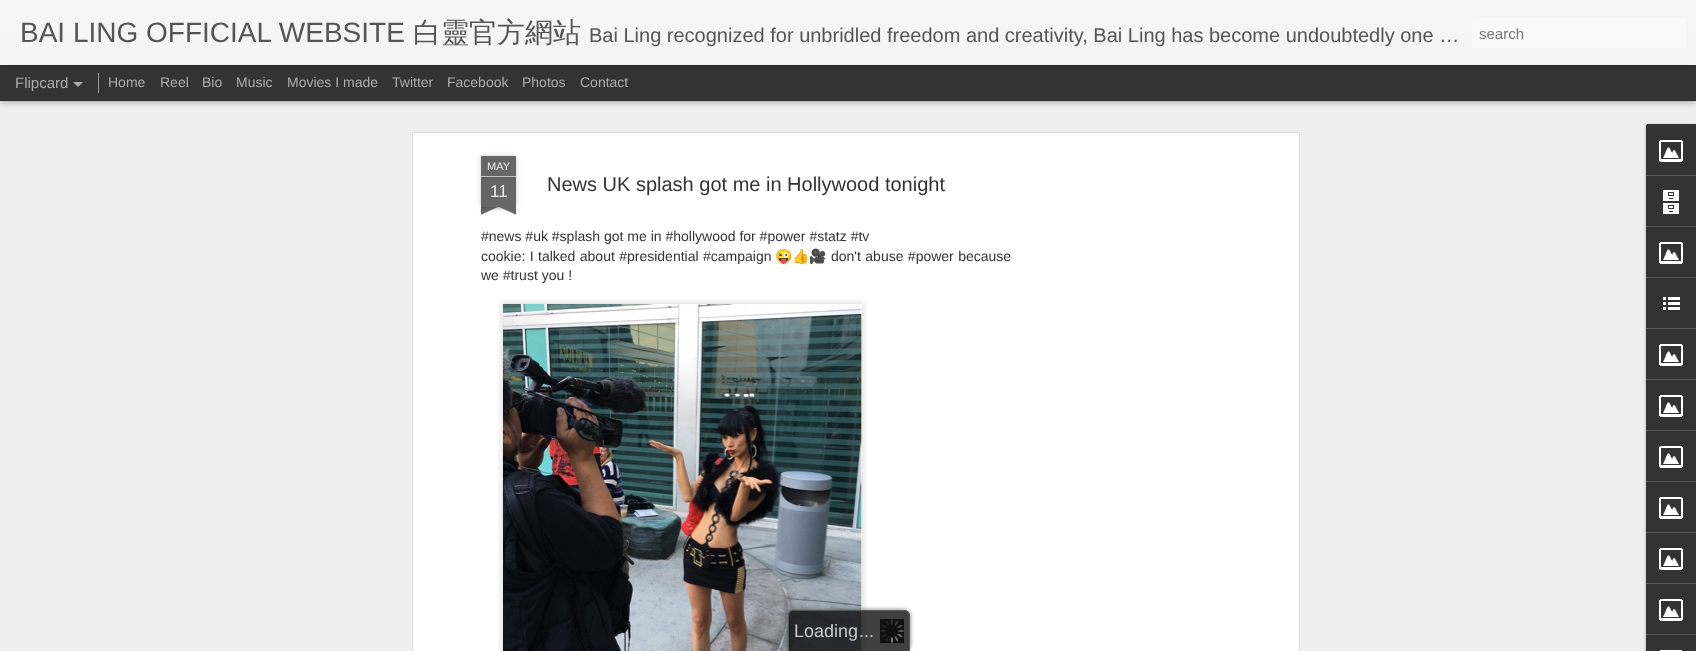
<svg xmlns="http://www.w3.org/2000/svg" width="1696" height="651">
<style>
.a{font:28px Liberation Sans;fill:#555}
.b{font:500 28px WenQuanYi Zen Hei;fill:#555}
.c{font:20px Liberation Sans;fill:#555}
.d{font:15px Liberation Sans;fill:#757575}
.e{font:15px Liberation Sans;fill:#adadad}
.f{font:14px Liberation Sans;fill:#adadad}
.g{font:11px Liberation Sans;fill:#eee}
.h{font:17px Liberation Sans;fill:#eee}
.i{font:20px Liberation Sans;fill:#333}
.j{font:14px Liberation Sans;fill:#333}
.k{font:14px Noto Color Emoji;fill:#333}
.l{font:18px Liberation Sans;fill:#c9c9ca}
</style>
<defs>
<linearGradient id="g1" gradientUnits="userSpaceOnUse" x1="0" y1="0" x2="0" y2="65"><stop offset="0" stop-color="#f7f7f7"/><stop offset="1" stop-color="#f4f4f4"/></linearGradient>
<clipPath id="clip1"><path d="M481 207h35v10H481z"/></clipPath>
<clipPath id="clip2"><path d="M481 207h35v10H481z"/></clipPath>
<clipPath id="clip3"><path d="M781 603h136v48h-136zm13 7h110c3.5 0 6 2.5 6 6v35h-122v-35c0-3.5 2.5-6 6-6z" clip-rule="evenodd"/></clipPath>
</defs>
<rect width="100%" height="100%" fill="#333"/>
<path fill="#eee" d="M0 101h1696v550H0z"/>
<path fill="#00000080" filter="blur(4px)" d="M0 65h1696v35H0z"/>
<path fill="#333" d="M0 65h1696v35H0z"/>
<path fill="#999" d="M98 73h1v20H98z"/>
<path fill="#0000004d" filter="blur(2.5px)" d="M0 0h1696v65H0z"/>
<path fill="url(#g1)" d="M0 0h1696v65H0z"/>
<rect fill="#fafafa" x="1472" y="18" width="214" height="30" rx="3"/>
<path fill="#adadad" d="M73 82h10l-5 5z"/>
<path fill="#fff" d="M411 131h890v520H411z"/>
<image href="1.png" x="411" y="131" width="890" height="520"/>
<path fill="#00000033" filter="blur(2.5px)" d="M481 177h35v30H481z"/>
<path fill="#666" d="M481 177h35v30H481z"/>
<rect fill="#00000033" filter="blur(2.5px)" x="481" y="156" width="35" height="21" rx="1"/>
<path fill="#666" d="M482 156h33c.5 0 1 .5 1 1v20h-35v-20c0-.5 .5-1 1-1z"/>
<path fill="#c2c2c2" d="M481 176h35v1H481z"/>
<g clip-path="url(#clip1)">
<path fill="#00000033" filter="blur(2.5px)" d="M472 197h50v10H472z"/>
</g>
<g clip-path="url(#clip2)">
<path fill="#666" d="M472 208l46-21l4 9l-46 21z"/>
</g>
<g clip-path="url(#clip1)">
<path fill="#00000033" filter="blur(2.5px)" d="M475 197h50v10H475z"/>
</g>
<g clip-path="url(#clip2)">
<path fill="#666" d="M479 187l46 21l-4 9l-46-21z"/>
</g>
<image href="2.png" x="498" y="299" width="369" height="352"/>
<rect fill="#0000004d" filter="blur(1.5px)" x="1646" y="125" width="50" height="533" rx="2"/>
<path fill="#333" d="M1648 124h48v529h-48c-1 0-2-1-2-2v-525c0-1 1-2 2-2z"/>
<path fill="#333" d="M1648 124h48v51h-50v-49c0-1 1-2 2-2z"/>
<image href="3.png" x="1659" y="140" width="24" height="22"/>
<path fill="#585858" d="M1646 175h50v1H1646z"/>
<image href="4.png" x="1663" y="190" width="16" height="24"/>
<path fill="#585858" d="M1646 226h50v1H1646z"/>
<image href="3.png" x="1659" y="242" width="24" height="22"/>
<path fill="#585858" d="M1646 277h50v1H1646z"/>
<image href="5.png" x="1663" y="297" width="17" height="13"/>
<path fill="#585858" d="M1646 328h50v1H1646z"/>
<image href="3.png" x="1659" y="344" width="24" height="22"/>
<path fill="#585858" d="M1646 379h50v1H1646z"/>
<image href="3.png" x="1659" y="395" width="24" height="22"/>
<path fill="#585858" d="M1646 430h50v1H1646z"/>
<image href="3.png" x="1659" y="446" width="24" height="22"/>
<path fill="#585858" d="M1646 481h50v1H1646z"/>
<image href="3.png" x="1659" y="497" width="24" height="22"/>
<path fill="#585858" d="M1646 532h50v1H1646z"/>
<image href="3.png" x="1659" y="548" width="24" height="22"/>
<path fill="#585858" d="M1646 583h50v1H1646z"/>
<image href="3.png" x="1659" y="599" width="24" height="22"/>
<path fill="#585858" d="M1646 634h50v1H1646z"/>
<path fill="#fff" d="M1660 650h22v1H1660z"/>
<g clip-path="url(#clip3)">
<rect fill="#333333bf" filter="blur(2px)" x="788" y="610" width="122" height="41" rx="6"/>
</g>
<path fill="#000000bf" d="M794 610h110c3.5 0 6 2.5 6 6v35h-122v-35c0-3.5 2.5-6 6-6z"/>
<path fill="#666666bf" fill-rule="evenodd" d="M794 610h110c3 0 6 3 6 6v35h-122v-35c0-3 3-6 6-6zm0 1h110c3 0 5 2 5 5v35h-120v-35c0-3 2-5 5-5z"/>
<image href="6.png" x="880" y="619" width="24" height="24"/>
<text class="a" x="20" y="42">BAI LING OFFICIAL WEBSITE</text>
<text class="b" x="413" y="42">白靈官方網站</text>
<text class="c" x="589" y="42">Bai Ling recognized for unbridled freedom and creativity, Bai Ling has become undoubtedly one …</text>
<text class="d" x="1479" y="39">search</text>
<text class="e" x="15" y="88">Flipcard</text>
<text class="f" x="108" y="87">Home</text>
<text class="f" x="160" y="87">Reel</text>
<text class="f" x="202" y="87">Bio</text>
<text class="f" x="236" y="87">Music</text>
<text class="f" x="287" y="87">Movies I made</text>
<text class="f" x="392" y="87">Twitter</text>
<text class="f" x="447" y="87">Facebook</text>
<text class="f" x="522" y="87">Photos</text>
<text class="f" x="580" y="87">Contact</text>
<text class="g" x="487" y="170">MAY</text>
<text class="h" x="490" y="197">11</text>
<text class="i" x="547" y="191">News UK splash got me in Hollywood tonight</text>
<text class="j" x="481" y="241">#news #uk #splash got me in #hollywood for #power #statz #tv</text>
<text class="j" x="481" y="261" word-spacing="0.5">cookie: I talked about #presidential #campaign</text>
<text class="k" x="775" y="261">😜👍🎥</text>
<text class="j" x="831" y="261" word-spacing="0.5">don't abuse #power because</text>
<text class="j" x="481" y="280">we #trust you !</text>
<text class="l" x="794" y="637">Loading</text>
<text class="l" x="859" y="637">...</text>
</svg>
